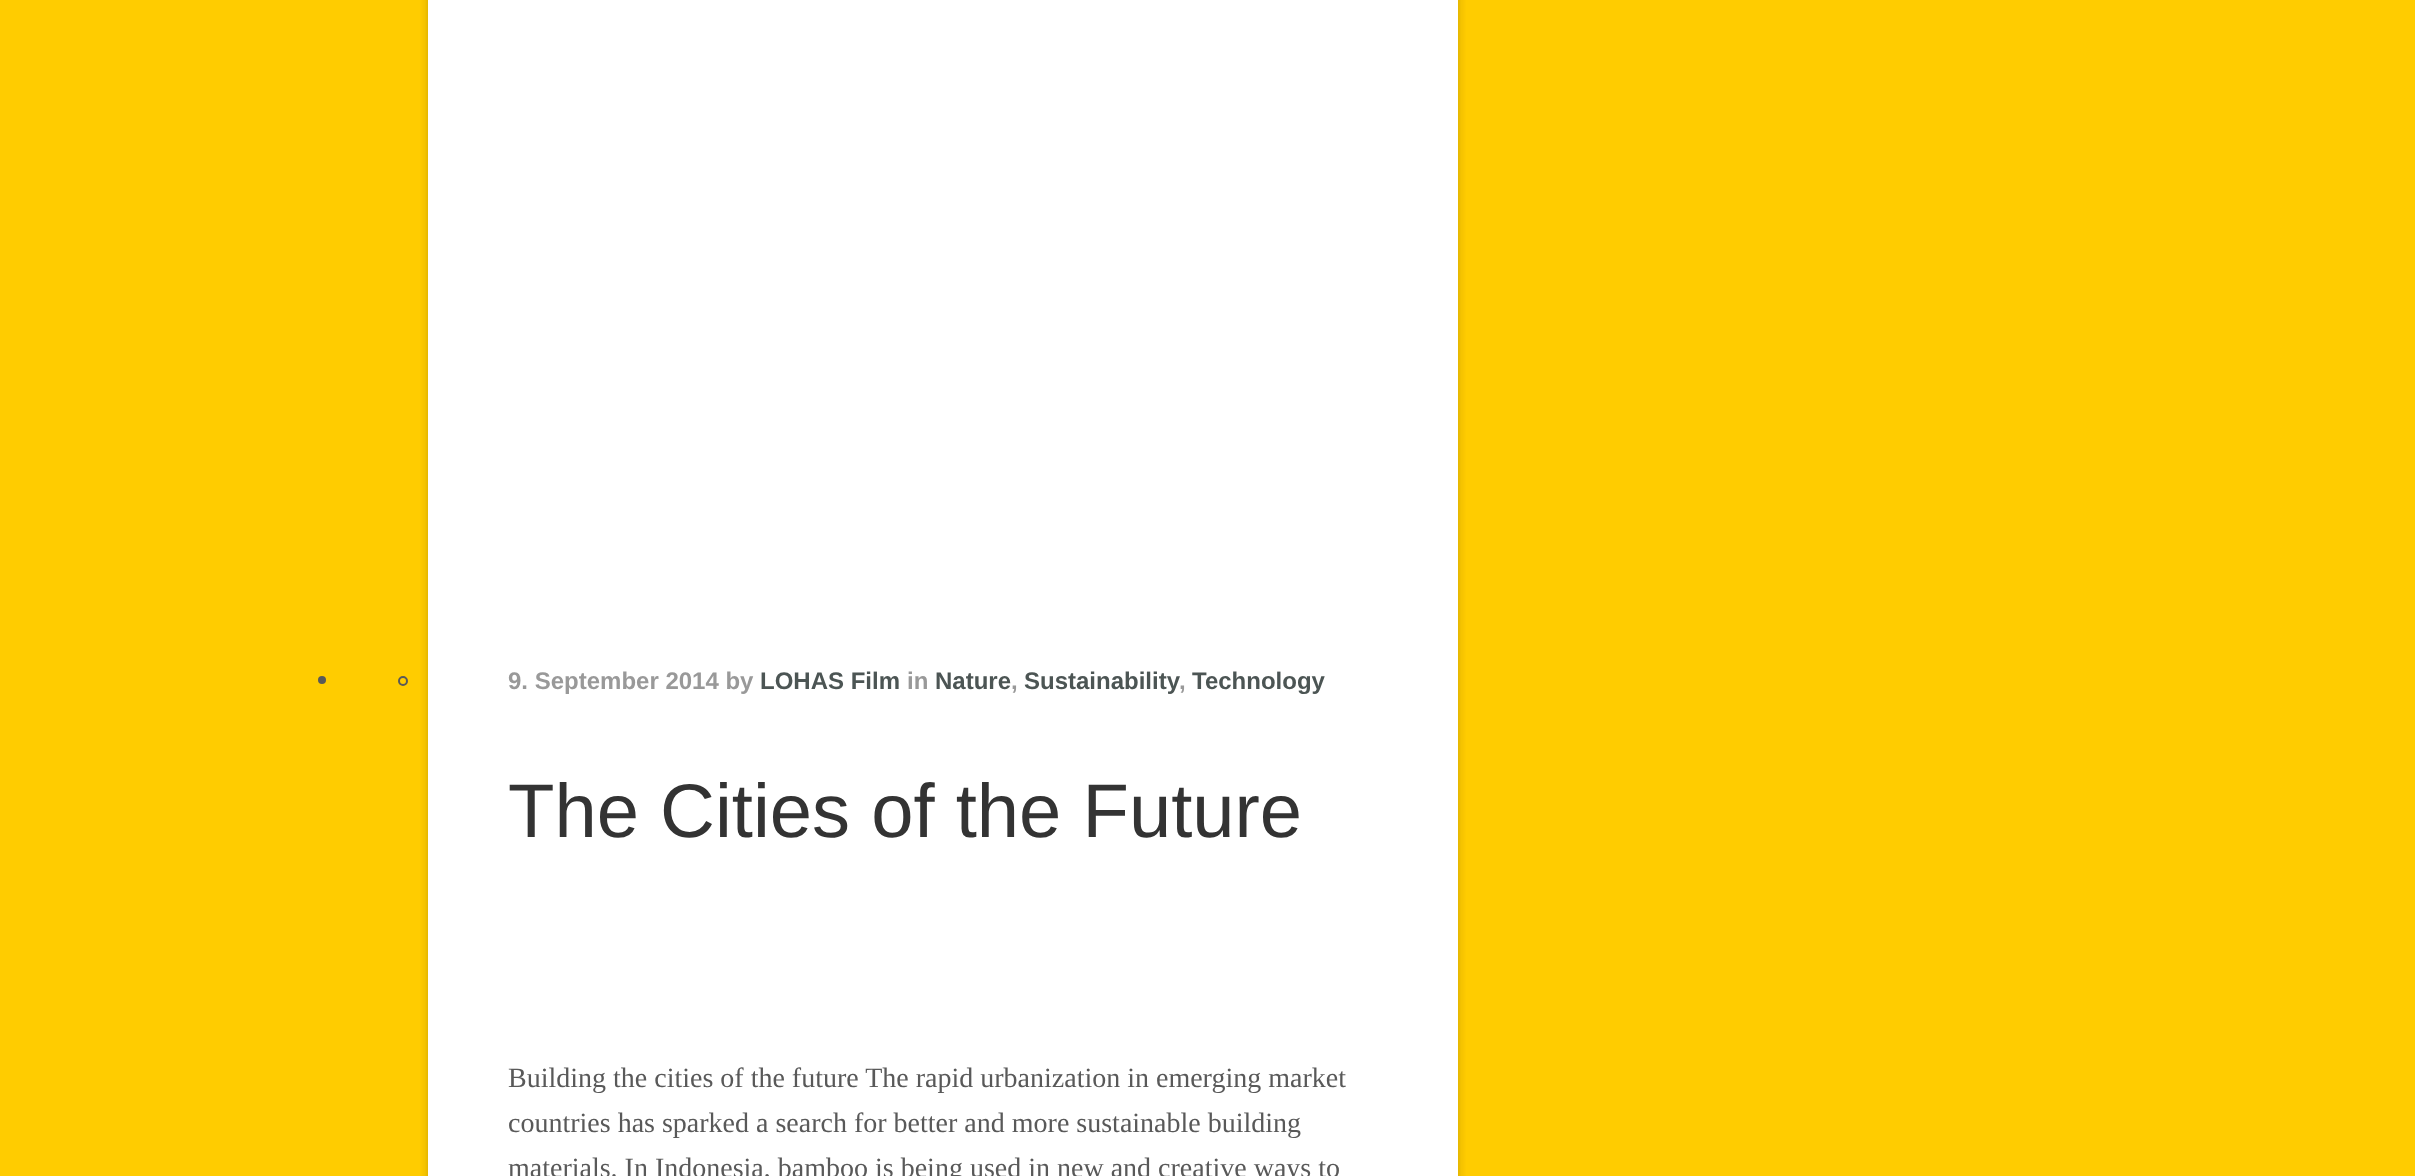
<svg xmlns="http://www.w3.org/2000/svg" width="2415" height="1176">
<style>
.a{font:bold 24px Liberation Sans;fill:#999}
.b{font:bold 24px Liberation Sans;fill:#4c5554}
.c{font:76px Liberation Sans;fill:#333}
.d{font:28px Liberation Serif;fill:#595959}
</style>
<defs>
<clipPath id="clip1"><path d="M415 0h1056v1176h-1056zm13-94h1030v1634h-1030z" clip-rule="evenodd"/></clipPath>
</defs>
<rect width="100%" height="100%" fill="#fc0"/>
<circle fill="#595959" cx="322" cy="680" r="4"/>
<path fill="#0000001a" filter="blur(4px)" d="M428 -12h1030v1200H428z"/>
<path fill="#fff" d="M428 0h1030v1176H428z"/>
<circle fill="none" stroke="#595959" stroke-width="2" cx="403" cy="681" r="4"/>
<g clip-path="url(#clip1)">
<path fill="#0000001a" filter="blur(4px)" d="M428 -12h1030v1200H428z"/>
</g>
<text class="a" x="508" y="689">9. September 2014 by</text>
<text class="b" x="760" y="689">LOHAS Film</text>
<text class="a" x="907" y="689">in</text>
<text class="b" x="935" y="689">Nature</text>
<text class="a" x="1011" y="689">,</text>
<text class="b" x="1024" y="689">Sustainability</text>
<text class="a" x="1179" y="689">,</text>
<text class="b" x="1192" y="689">Technology</text>
<text class="c" x="508" y="837">The Cities of the Future</text>
<text class="d" x="508" y="1087">Building the cities of the future The rapid urbanization in emerging market</text>
<text class="d" x="508" y="1132">countries has sparked a search for better and more sustainable building</text>
<text class="d" x="508" y="1177">materials. In Indonesia, bamboo is being used in new and creative ways to</text>
</svg>
